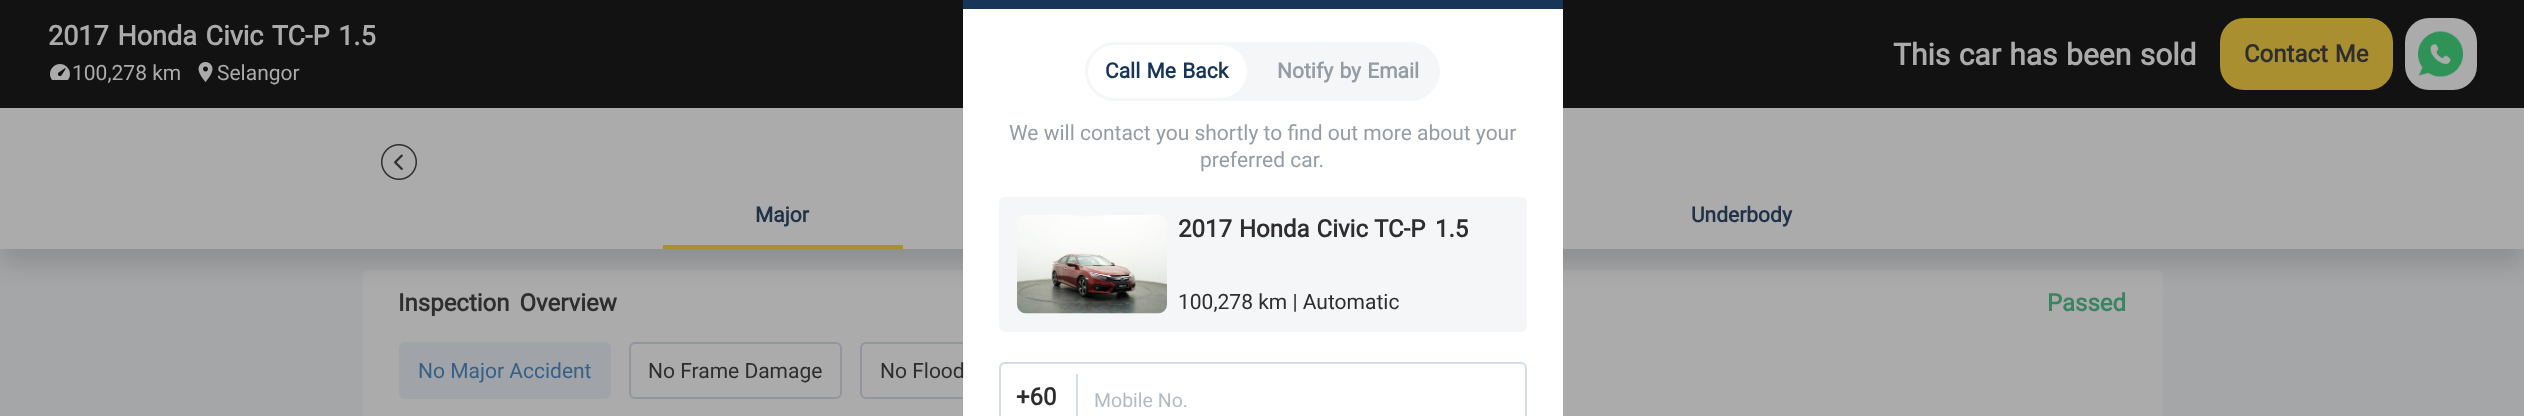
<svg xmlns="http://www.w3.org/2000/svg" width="2524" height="416">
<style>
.a{font:bold 27px Roboto;fill:#ababab}
.b{font:21px Roboto;fill:#ababab}
.c{font:bold 30px Roboto;fill:#ababab}
.d{font:bold 24px Roboto;fill:#2e2e2e}
.e{font:bold 21px Roboto;fill:#203248}
.f{font:bold 24px Roboto;fill:#3b8365}
.g{font:21px Roboto;fill:#376087}
.h{font:21px Roboto;fill:#2e2e2e}
.i{font:bold 21px Roboto;fill:#173559}
.j{font:bold 21px Roboto;fill:#959ca4}
.k{font:21px Roboto;fill:#959ca4}
.l{font:19.5px Roboto;fill:#b3bac4}
</style>
<rect width="100%" height="100%" fill="#a5a6a7"/>
<rect fill="#ababab" x="363" y="270" width="1800" height="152" rx="6"/>
<path fill="#12121229" filter="blur(12px)" d="M0 15h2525v249H0z"/>
<path fill="#ababab" d="M0 108h2524v141H0z"/>
<path fill="#121212" d="M0 0h2524v108H0z"/>
<image href="1.png" x="50" y="64" width="20" height="16"/>
<image href="2.png" x="198" y="62" width="15" height="20"/>
<rect fill="#aa8f31" x="2220" y="18" width="173" height="72" rx="24"/>
<rect fill="#ababab" x="2405" y="18" width="72" height="72" rx="24"/>
<image href="3.png" x="2418" y="31" width="45" height="46"/>
<image href="4.png" x="381" y="144" width="36" height="36"/>
<path fill="#aa8f31" d="M663 245h240v4H663z"/>
<rect fill="#a0a4a8" stroke="#a0a4a8" stroke-width="2" x="400" y="343" width="210" height="55" rx="5"/>
<rect fill="none" stroke="#92969c" stroke-width="2" x="630" y="343" width="211" height="55" rx="5"/>
<rect fill="none" stroke="#92969c" stroke-width="2" x="861" y="343" width="205" height="55" rx="5"/>
<path fill="#173559" d="M963 0h600v9H963z"/>
<path fill="#fff" d="M963 9h600v407H963z"/>
<rect fill="#f4f6f8" x="1085" y="42" width="355" height="59" rx="29.5"/>
<rect fill="#fff" x="1088" y="45" width="159" height="53" rx="26.5"/>
<rect fill="#f4f6f8" x="999" y="197" width="528" height="135" rx="6"/>
<image href="5.png" x="1017" y="215" width="150" height="99"/>
<rect fill="none" stroke="#d5dce5" stroke-width="2" x="1000" y="363" width="526" height="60" rx="5"/>
<path fill="#d5dce6" d="M1076 374h2v42H1076z"/>
<text class="a" x="48" y="45" word-spacing="2">2017 Honda Civic TC-P 1.5</text>
<text class="b" x="72" y="80">100,278 km</text>
<text class="b" x="217" y="80">Selangor</text>
<text class="c" x="1893" y="65" word-spacing="1">This car has been sold</text>
<text class="d" x="2244" y="62" word-spacing="1">Contact Me</text>
<text class="e" x="755" y="222">Major</text>
<text class="e" x="1691" y="222">Underbody</text>
<text class="d" x="398" y="311" word-spacing="4">Inspection Overview</text>
<text class="f" x="2047" y="311">Passed</text>
<text class="g" x="418" y="378">No Major Accident</text>
<text class="h" x="648" y="378">No Frame Damage</text>
<text class="h" x="880" y="378">No Flood</text>
<text class="i" x="1105" y="78" word-spacing="1">Call Me Back</text>
<text class="j" x="1277" y="78" word-spacing="1">Notify by Email</text>
<text class="k" x="1009" y="140">We will contact you shortly to find out more about your</text>
<text class="k" x="1200" y="167">preferred car.</text>
<text class="d" x="1178" y="237" word-spacing="1">2017 Honda Civic</text>
<text class="d" x="1374" y="237">TC-P</text>
<text class="d" x="1435" y="237">1.5</text>
<text class="h" x="1178" y="309">100,278 km | Automatic</text>
<text class="d" x="1016" y="405">+60</text>
<text class="l" x="1094" y="407">Mobile No.</text>
</svg>
